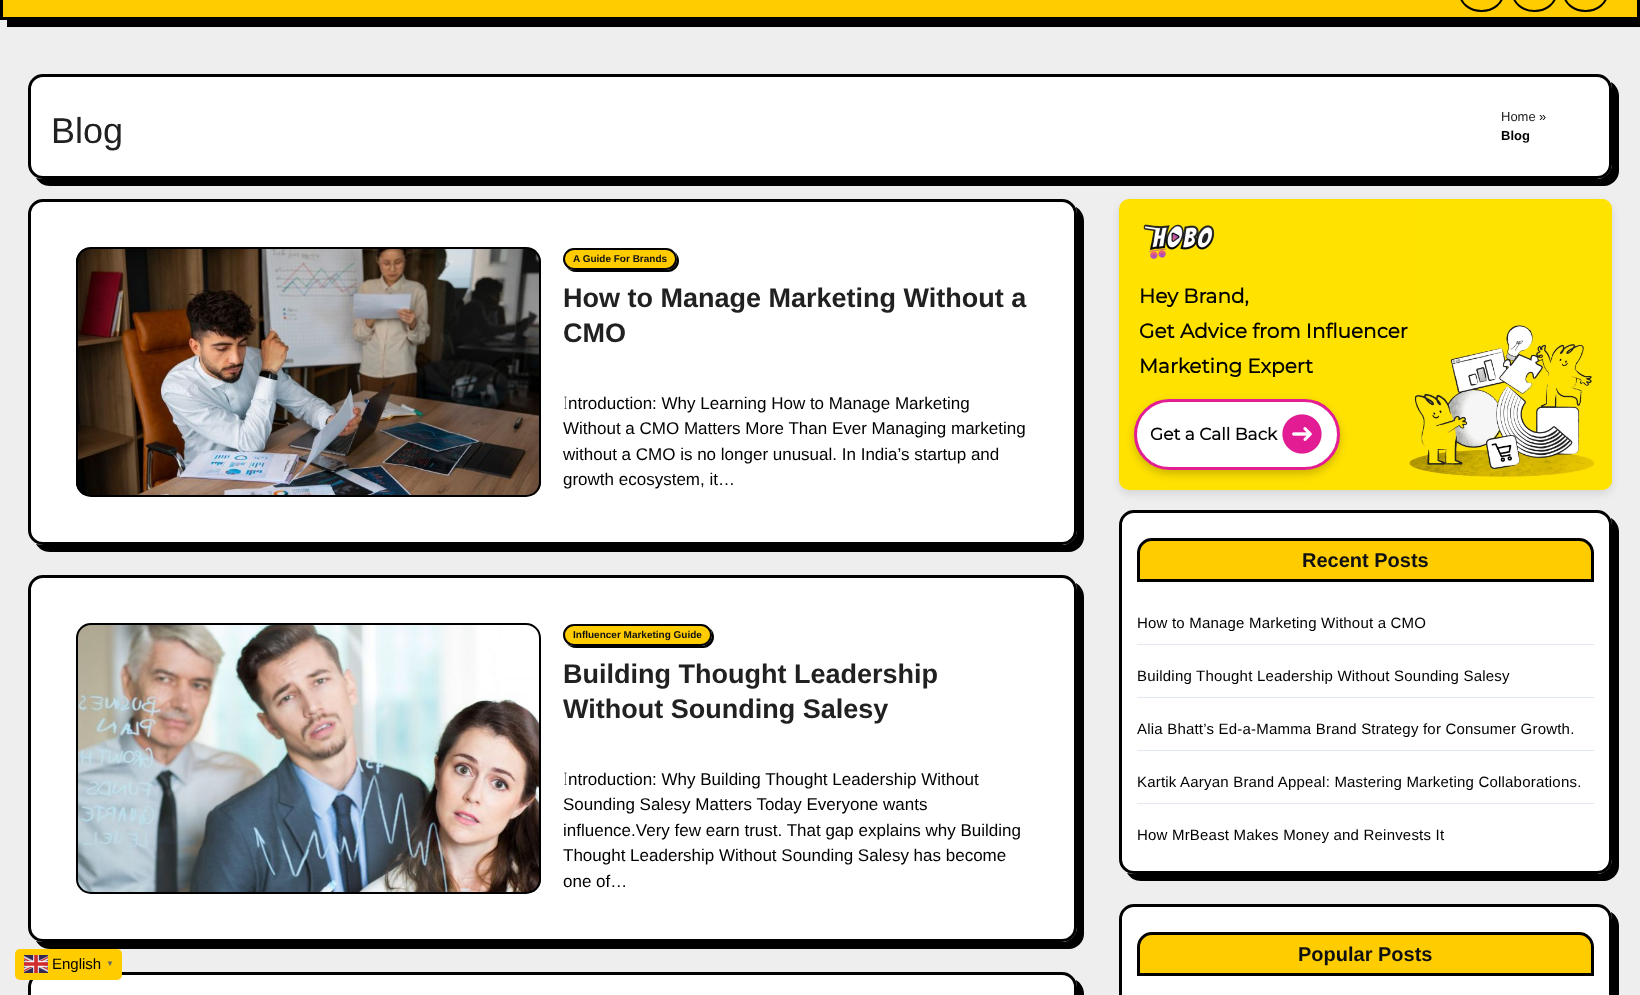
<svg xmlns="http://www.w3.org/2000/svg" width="1640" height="995">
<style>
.a{font:36px Liberation Sans;fill:#212121}
.b{font:13px Liberation Sans;fill:#212121}
.c{font:13px Liberation Sans;fill:#000}
.d{font:bold 13px Liberation Sans;fill:#000}
.e{font:bold 10px Liberation Sans;fill:#0f1012}
.f{font:bold 27px Liberation Sans;fill:#212121}
.g{font:100 17px Noto Sans;fill:#000}
.h{font:17px Liberation Sans;fill:#000}
.i{font:bold 20px Montserrat;fill:#000}
.j{font:bold 17px Montserrat;fill:#000}
.k{font:bold 20px Liberation Sans;fill:#0f1012}
.l{font:15px Liberation Sans;letter-spacing:0.2px;fill:#000}
.m{font:15px Liberation Sans;fill:#000}
.n{font:bold 8px Liberation Sans;fill:#666}
</style>
<rect width="100%" height="100%" fill="#eee"/>
<path fill="#000" d="M7 20v7h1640v-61h-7v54z"/>
<path fill="#fc0" stroke="#000" stroke-width="3" d="M1.5 -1.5h1637v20H1.5z"/>
<rect fill="none" stroke="#000" stroke-width="2" x="1460" y="-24" width="43" height="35" rx="21.5"/>
<rect fill="none" stroke="#000" stroke-width="2" x="1513" y="-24" width="43" height="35" rx="21.5"/>
<rect fill="none" stroke="#000" stroke-width="2" x="1564" y="-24" width="43" height="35" rx="21.5"/>
<path fill="#000" d="M36 178c3 5 8 8 14 8h1554c8 0 15-7 15-15v-75c0-6-3-11-8-14c0 2 1 5 1 7v75c0 8-7 15-15 15h-1554c-2 0-5-1-7-1z"/>
<rect fill="#fff" stroke="#000" stroke-width="3" x="29.5" y="75.5" width="1581" height="102" rx="13.5"/>
<path fill="#000" d="M36 544c3 5 8 8 14 8h1019c8 0 15-7 15-15v-316c0-6-3-11-8-14c0 2 1 5 1 7v316c0 8-7 15-15 15h-1019c-2 0-5-1-7-1z"/>
<rect fill="#fff" stroke="#000" stroke-width="3" x="29.5" y="200.5" width="1046" height="343" rx="13.5"/>
<image href="1.png" x="76" y="249" width="465" height="246"/>
<rect fill="none" stroke="#000" stroke-width="2" x="77" y="248" width="463" height="248" rx="14"/>
<path fill="#000" d="M567 268c2 2 5 4 9 4h92c6 0 11-5 11-11c0-4-2-7-4-9c1 2 2 4 2 7c0 6-5 11-11 11h-92c-3 0-5-1-7-2z"/>
<rect fill="#fc0" stroke="#000" stroke-width="2" x="564" y="249" width="112" height="20" rx="10"/>
<path fill="#000" d="M36 941c3 5 8 8 14 8h1019c8 0 15-7 15-15v-337c0-6-3-11-8-14c0 2 1 5 1 7v337c0 8-7 15-15 15h-1019c-2 0-5-1-7-1z"/>
<rect fill="#fff" stroke="#000" stroke-width="3" x="29.5" y="576.5" width="1046" height="364" rx="13.5"/>
<image href="2.png" x="76" y="625" width="465" height="267"/>
<rect fill="none" stroke="#000" stroke-width="2" x="77" y="624" width="463" height="269" rx="14"/>
<path fill="#000" d="M567 644c2 2 5 4 9 4h127c6 0 11-5 11-11c0-4-2-7-4-9c1 2 2 4 2 7c0 6-5 11-11 11h-127c-3 0-5-1-7-2z"/>
<rect fill="#fc0" stroke="#000" stroke-width="2" x="564" y="625" width="147" height="20" rx="10"/>
<path fill="#000" d="M36 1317c3 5 8 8 14 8h1019c8 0 15-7 15-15v-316c0-6-3-11-8-14c0 2 1 5 1 7v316c0 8-7 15-15 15h-1019c-2 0-5-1-7-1z"/>
<rect fill="#fff" stroke="#000" stroke-width="3" x="29.5" y="973.5" width="1046" height="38" rx="13.5"/>
<rect fill="#0000001a" filter="blur(4px)" x="1119" y="203" width="493" height="291" rx="10"/>
<rect fill="#ffe200" x="1119" y="199" width="493" height="291" rx="10"/>
<image href="3.png" x="1409" y="199" width="203" height="291"/>
<image href="4.png" x="1143" y="224" width="72" height="35"/>
<rect fill="#00000033" filter="blur(4px)" x="1134" y="403" width="206" height="71" rx="35.5"/>
<rect fill="#fff" stroke="#e31d93" stroke-width="3" x="1135.5" y="400.5" width="203" height="68" rx="34"/>
<image href="5.png" x="1282" y="414" width="40" height="40"/>
<path fill="#000" d="M1127 873c3 5 8 8 14 8h463c8 0 15-7 15-15v-334c0-6-3-11-8-14c0 2 1 5 1 7v334c0 8-7 15-15 15h-463c-2 0-5-1-7-1z"/>
<rect fill="#fff" stroke="#000" stroke-width="3" x="1120.5" y="511.5" width="490" height="361" rx="13.5"/>
<path fill="#fc0" stroke="#000" stroke-width="3" d="M1152 539.5h427c7.5 0 13.5 6 13.5 13.5v27.5h-454v-27.5c0-7.5 6-13.5 13.5-13.5z"/>
<path fill="#e2e8f0" d="M1137 644h457v1H1137z"/>
<path fill="#e2e8f0" d="M1137 697h457v1H1137z"/>
<path fill="#e2e8f0" d="M1137 750h457v1H1137z"/>
<path fill="#e2e8f0" d="M1137 803h457v1H1137z"/>
<path fill="#000" d="M1127 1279c3 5 8 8 14 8h463c8 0 15-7 15-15v-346c0-6-3-11-8-14c0 2 1 5 1 7v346c0 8-7 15-15 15h-463c-2 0-5-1-7-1z"/>
<rect fill="#fff" stroke="#000" stroke-width="3" x="1120.5" y="905.5" width="490" height="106" rx="13.5"/>
<path fill="#fc0" stroke="#000" stroke-width="3" d="M1152 933.5h427c7.5 0 13.5 6 13.5 13.5v27.5h-454v-27.5c0-7.5 6-13.5 13.5-13.5z"/>
<rect fill="#fc0" x="15" y="949" width="107" height="31" rx="5"/>
<image href="6.png" x="24" y="955" width="24" height="18"/>
<text class="a" x="51" y="143">Blog</text>
<text class="b" x="1501" y="121">Home</text>
<text class="c" x="1539" y="121">»</text>
<text class="d" x="1501" y="140">Blog</text>
<text class="e" x="573" y="262">A Guide For Brands</text>
<text class="f" x="563" y="307">How to Manage Marketing Without a</text>
<text class="f" x="563" y="342">CMO</text>
<text class="g" x="563" y="409">I</text>
<text class="h" x="568" y="409">ntroduction: Why Learning How to Manage Marketing</text>
<text class="h" x="563" y="434">Without a CMO Matters More Than Ever Managing marketing</text>
<text class="h" x="563" y="460">without a CMO is no longer unusual. In India’s startup and</text>
<text class="h" x="563" y="485">growth ecosystem, it…</text>
<text class="e" x="573" y="638">Influencer Marketing Guide</text>
<text class="f" x="563" y="683">Building Thought Leadership</text>
<text class="f" x="563" y="718">Without Sounding Salesy</text>
<text class="g" x="563" y="785">I</text>
<text class="h" x="568" y="785">ntroduction: Why Building Thought Leadership Without</text>
<text class="h" x="563" y="810">Sounding Salesy Matters Today Everyone wants</text>
<text class="h" x="563" y="836">influence.Very few earn trust. That gap explains why Building</text>
<text class="h" x="563" y="861">Thought Leadership Without Sounding Salesy has become</text>
<text class="h" x="563" y="887">one of…</text>
<text class="i" x="1139" y="303">Hey Brand,</text>
<text class="i" x="1139" y="338">Get Advice from Influencer</text>
<text class="i" x="1139" y="373">Marketing Expert</text>
<text class="j" x="1150" y="440">Get a Call Back</text>
<text class="k" x="1302" y="567">Recent Posts</text>
<text class="l" x="1137" y="628">How to Manage Marketing Without a CMO</text>
<text class="l" x="1137" y="681">Building Thought Leadership Without Sounding Salesy</text>
<text class="l" x="1137" y="734">Alia Bhatt’s Ed-a-Mamma Brand Strategy for Consumer Growth.</text>
<text class="l" x="1137" y="787">Kartik Aaryan Brand Appeal: Mastering Marketing Collaborations.</text>
<text class="l" x="1137" y="840">How MrBeast Makes Money and Reinvests It</text>
<text class="k" x="1298" y="961">Popular Posts</text>
<text class="m" x="52" y="969">English</text>
<text class="n" x="106" y="966">▼</text>
</svg>
